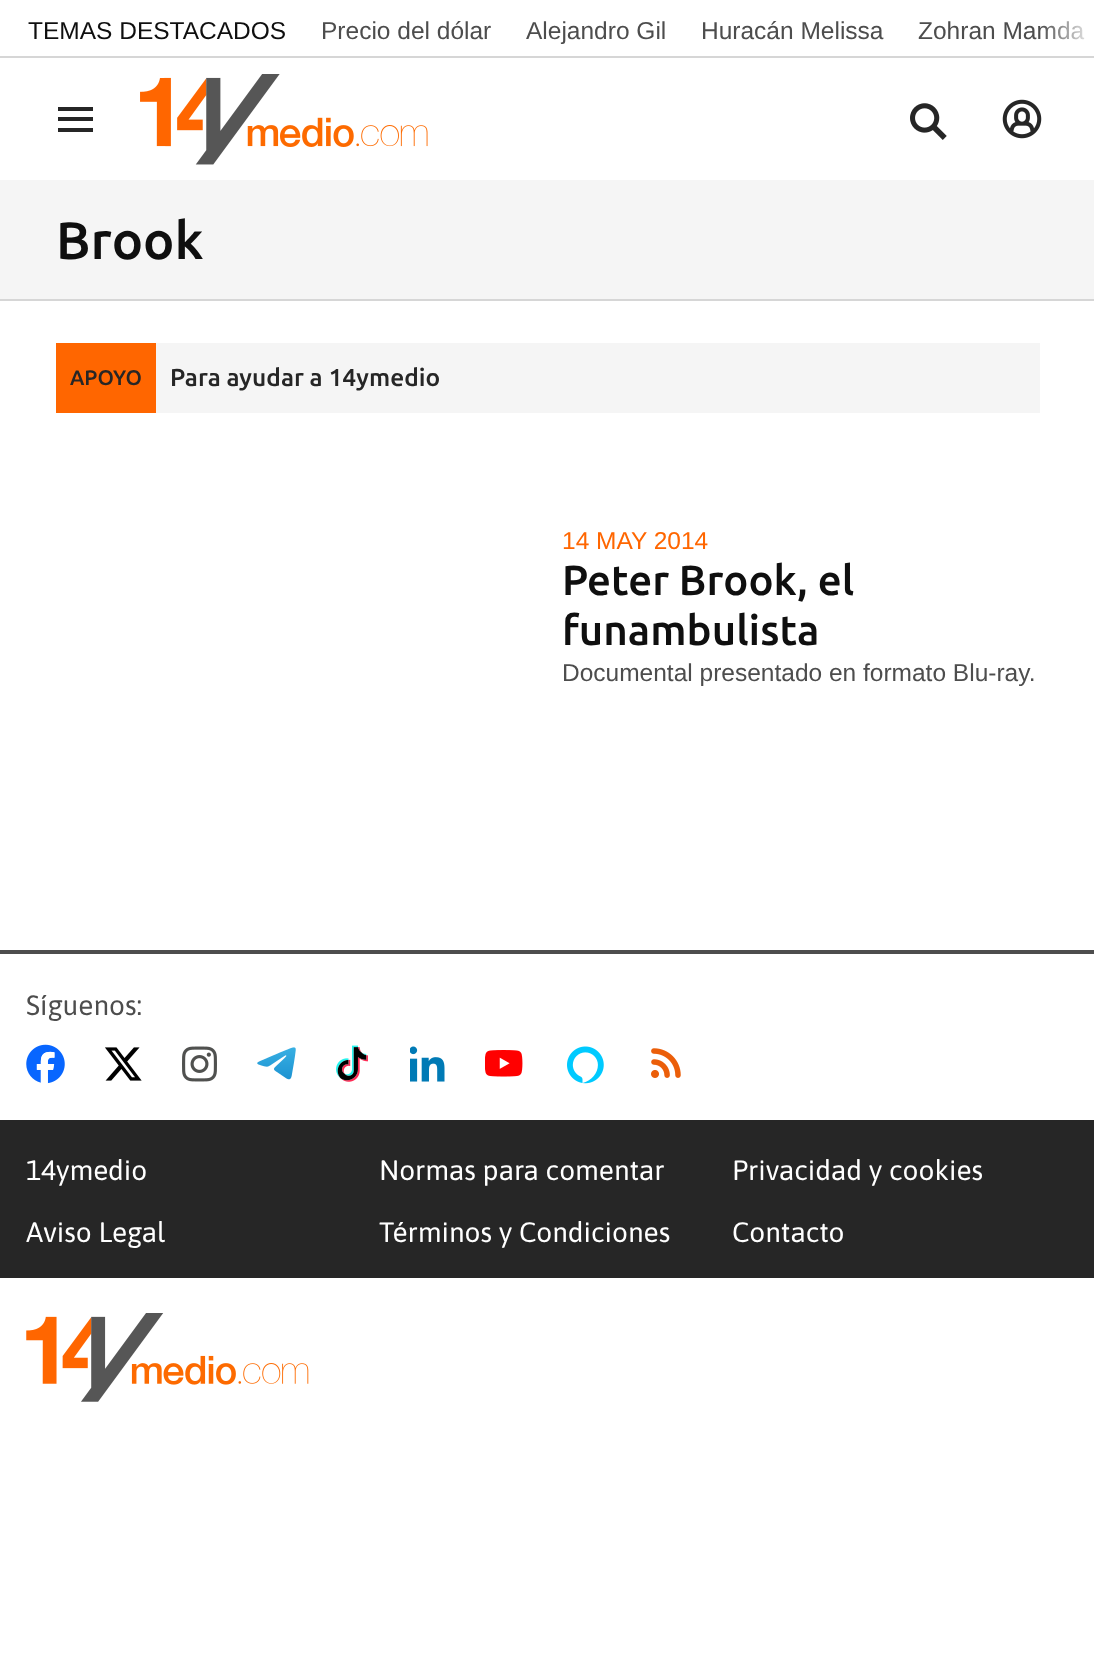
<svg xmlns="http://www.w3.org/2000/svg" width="1094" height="1673">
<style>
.a{font:24.5px Liberation Sans;fill:#0f0f0f}
.b{font:24.5px Liberation Sans;fill:#4d4d4d}
.c{font:500 52.5px Ubuntu;fill:#0f0f0f}
.d{font:500 21px Ubuntu;fill:#262626}
.e{font:500 24.5px Ubuntu;fill:#262626}
.f{font:24.5px Liberation Sans;fill:#f60}
.g{font:500 42px Ubuntu;fill:#0f0f0f}
.h{font:28px Asap;fill:#4d4d4d}
.i{font:28px Asap;fill:#fff}
</style>
<defs>
<linearGradient id="g1" gradientUnits="userSpaceOnUse" x1="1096" y1="28" x2="1040" y2="28"><stop offset="0" stop-color="#fff"/><stop offset="1" stop-color="#fff" stop-opacity="0"/></linearGradient>
</defs>
<rect width="100%" height="100%" fill="#fff"/>
<path fill="#d6d6d6" d="M0 56h1094v2H0z"/>
<path fill="#262626" d="M58 107h35v4H58z"/>
<path fill="#262626" d="M58 117h35v4H58z"/>
<path fill="#262626" d="M58 128h35v4H58z"/>
<image href="1.png" x="140" y="74" width="288" height="91"/>
<image href="2.png" x="910" y="103" width="37" height="37"/>
<image href="3.png" x="1002" y="99" width="40" height="40"/>
<path fill="#f5f5f5" d="M0 180h1094v119H0z"/>
<path fill="#d6d6d6" d="M0 299h1094v2H0z"/>
<path fill="#f5f5f5" d="M156 343h884v70H156z"/>
<path fill="#f60" d="M56 343h100v70H56z"/>
<path fill="#4d4d4d" d="M0 950h1094v4H0z"/>
<image href="4.png" x="26" y="1044" width="39" height="40"/>
<image href="5.png" x="105" y="1047" width="37" height="34"/>
<image href="6.png" x="182" y="1046" width="35" height="36"/>
<image href="7.png" x="257" y="1047" width="39" height="33"/>
<image href="8.png" x="336" y="1045" width="32" height="37"/>
<image href="9.png" x="410" y="1046" width="35" height="36"/>
<image href="10.png" x="485" y="1050" width="38" height="27"/>
<image href="11.png" x="567" y="1046" width="37" height="38"/>
<image href="12.png" x="651" y="1048" width="30" height="30"/>
<path fill="#262626" d="M0 1120h1094v158H0z"/>
<image href="13.png" x="26" y="1313" width="283" height="89"/>
<text class="a" x="28" y="39">TEMAS DESTACADOS</text>
<text class="b" x="321" y="39">Precio del dólar</text>
<text class="b" x="526" y="39">Alejandro Gil</text>
<text class="b" x="701" y="39">Huracán Melissa</text>
<text class="b" x="918" y="39">Zohran Mamda</text>
<path fill="url(#g1)" d="M1041 21h44v19H1041z"/>
<text class="c" x="56" y="259">Brook</text>
<text class="d" x="70" y="385">APOYO</text>
<text class="e" x="170" y="386">Para ayudar a 14ymedio</text>
<text class="f" x="562" y="549">14 MAY 2014</text>
<text class="g" x="562" y="595">Peter Brook, el</text>
<text class="g" x="562" y="645">funambulista</text>
<text class="b" x="562" y="681">Documental presentado en formato Blu-ray.</text>
<text class="h" x="26" y="1015">Síguenos:</text>
<text class="i" x="26" y="1180">14ymedio</text>
<text class="i" x="379" y="1180">Normas para comentar</text>
<text class="i" x="732" y="1180">Privacidad y cookies</text>
<text class="i" x="26" y="1242">Aviso Legal</text>
<text class="i" x="379" y="1242">Términos y Condiciones</text>
<text class="i" x="732" y="1242">Contacto</text>
</svg>
